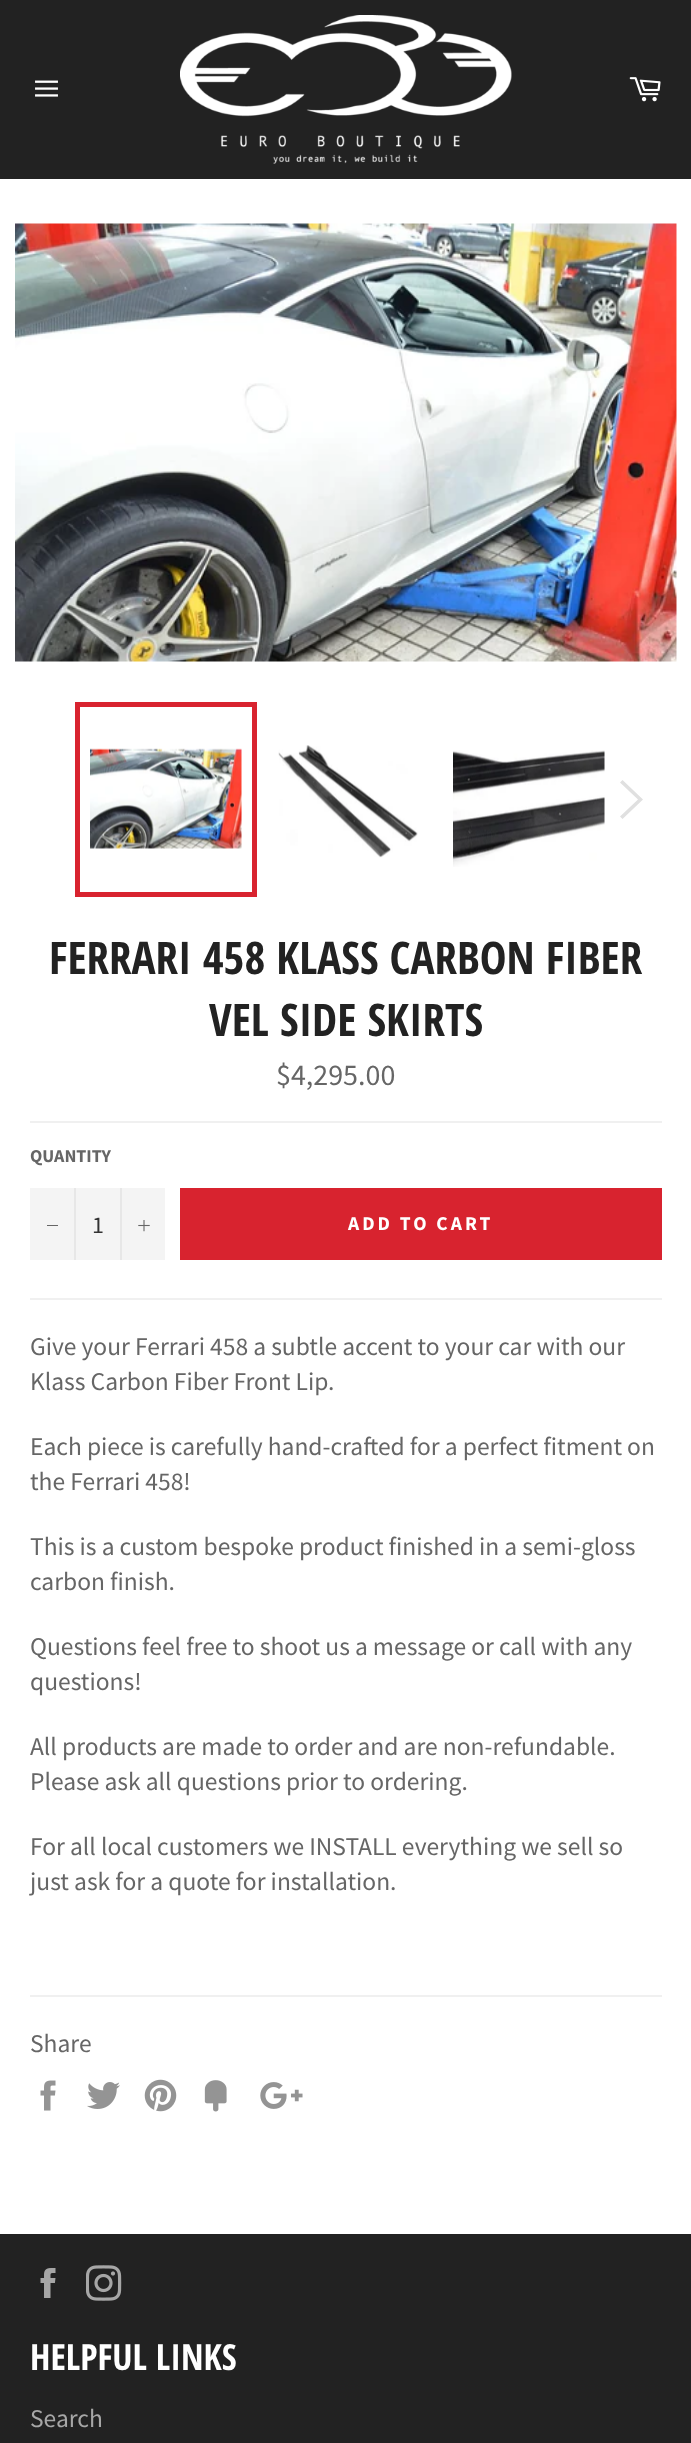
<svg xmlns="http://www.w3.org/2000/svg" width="691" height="2443">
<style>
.a{font:bold 45px Open Sans Condensed;fill:#222}
.b{font:30px Source Sans Pro;fill:#666}
.c{font:bold 18px Source Sans Pro;fill:#666}
.d{font:24px Source Sans Pro;fill:#333}
.e{font:bold 19.5px Source Sans Pro;letter-spacing:3px;fill:#fff}
.f{font:25.5px Source Sans Pro;fill:#666}
.g{font:bold 36px Open Sans Condensed;fill:#fff}
.h{font:25.5px Source Sans Pro;fill:#a7a7a7}
</style>
<rect width="100%" height="100%" fill="#fff"/>
<path fill="#222" d="M0 0h691v179H0z"/>
<image href="1.png" x="35" y="80" width="23" height="17"/>
<image href="2.png" x="180" y="15" width="332" height="149"/>
<image href="3.png" x="629" y="77" width="32" height="25"/>
<image href="4.png" x="15" y="223" width="662" height="439"/>
<image href="5.png" x="90" y="748" width="152" height="101"/>
<path fill="none" stroke="#d8232f" stroke-width="5" d="M77.5 704.5h177v190H77.5z"/>
<image href="6.png" x="278" y="745" width="140" height="113"/>
<image href="7.png" x="453" y="750" width="152" height="117"/>
<path fill="#e0e0e0" d="M620 782.5l2.5-2.5l20.5 19.5l-20.5 19.5l-2.5-2.5l18-17z"/>
<path fill="#f0f0f0" d="M30 1121h632v2H30z"/>
<path fill="#f4f4f4" d="M30 1188h135v72H30z"/>
<path fill="#e7e7e7" d="M74 1188h2v72H74z"/>
<path fill="#666" d="M47 1225h11v1H47z"/>
<path fill="#e7e7e7" d="M120 1188h2v72H120z"/>
<image href="8.png" x="138" y="1220" width="12" height="12"/>
<path fill="#d8232f" d="M180 1188h482v72H180z"/>
<path fill="#f0f0f0" d="M30 1298h632v2H30z"/>
<path fill="#f0f0f0" d="M30 1995h632v2H30z"/>
<image href="9.png" x="40" y="2080" width="16" height="31"/>
<image href="10.png" x="87" y="2082" width="33" height="27"/>
<image href="11.png" x="144" y="2079" width="33" height="33"/>
<image href="12.png" x="204" y="2080" width="23" height="32"/>
<image href="13.png" x="260" y="2082" width="43" height="27"/>
<path fill="#222" d="M0 2234h691v209H0z"/>
<image href="14.png" x="40" y="2268" width="16" height="30"/>
<image href="15.png" x="86" y="2265" width="36" height="36"/>
<text class="a" x="49" y="974">FERRARI 458 KLASS CARBON FIBER</text>
<text class="a" x="209" y="1036">VEL SIDE SKIRTS</text>
<text class="b" x="276" y="1085">$4,295.00</text>
<text class="c" x="30" y="1162">QUANTITY</text>
<text class="d" x="92" y="1233">1</text>
<text class="e" x="348" y="1230">ADD TO CART</text>
<text class="f" x="30" y="1355">Give your Ferrari 458 a subtle accent to your car with our</text>
<text class="f" x="30" y="1390">Klass Carbon Fiber Front Lip.</text>
<text class="f" x="30" y="1455">Each piece is carefully hand-crafted for a perfect fitment on</text>
<text class="f" x="30" y="1490">the Ferrari 458!</text>
<text class="f" x="30" y="1555">This is a custom bespoke product finished in a semi-gloss</text>
<text class="f" x="30" y="1590">carbon finish.</text>
<text class="f" x="30" y="1655">Questions feel free to shoot us a message or call with any</text>
<text class="f" x="30" y="1690">questions!</text>
<text class="f" x="30" y="1755">All products are made to order and are non-refundable.</text>
<text class="f" x="30" y="1790">Please ask all questions prior to ordering.</text>
<text class="f" x="30" y="1855">For all local customers we INSTALL everything we sell so</text>
<text class="f" x="30" y="1890">just ask for a quote for installation.</text>
<text class="f" x="30" y="2052">Share</text>
<text class="g" x="30" y="2370">HELPFUL LINKS</text>
<text class="h" x="30" y="2427">Search</text>
</svg>
